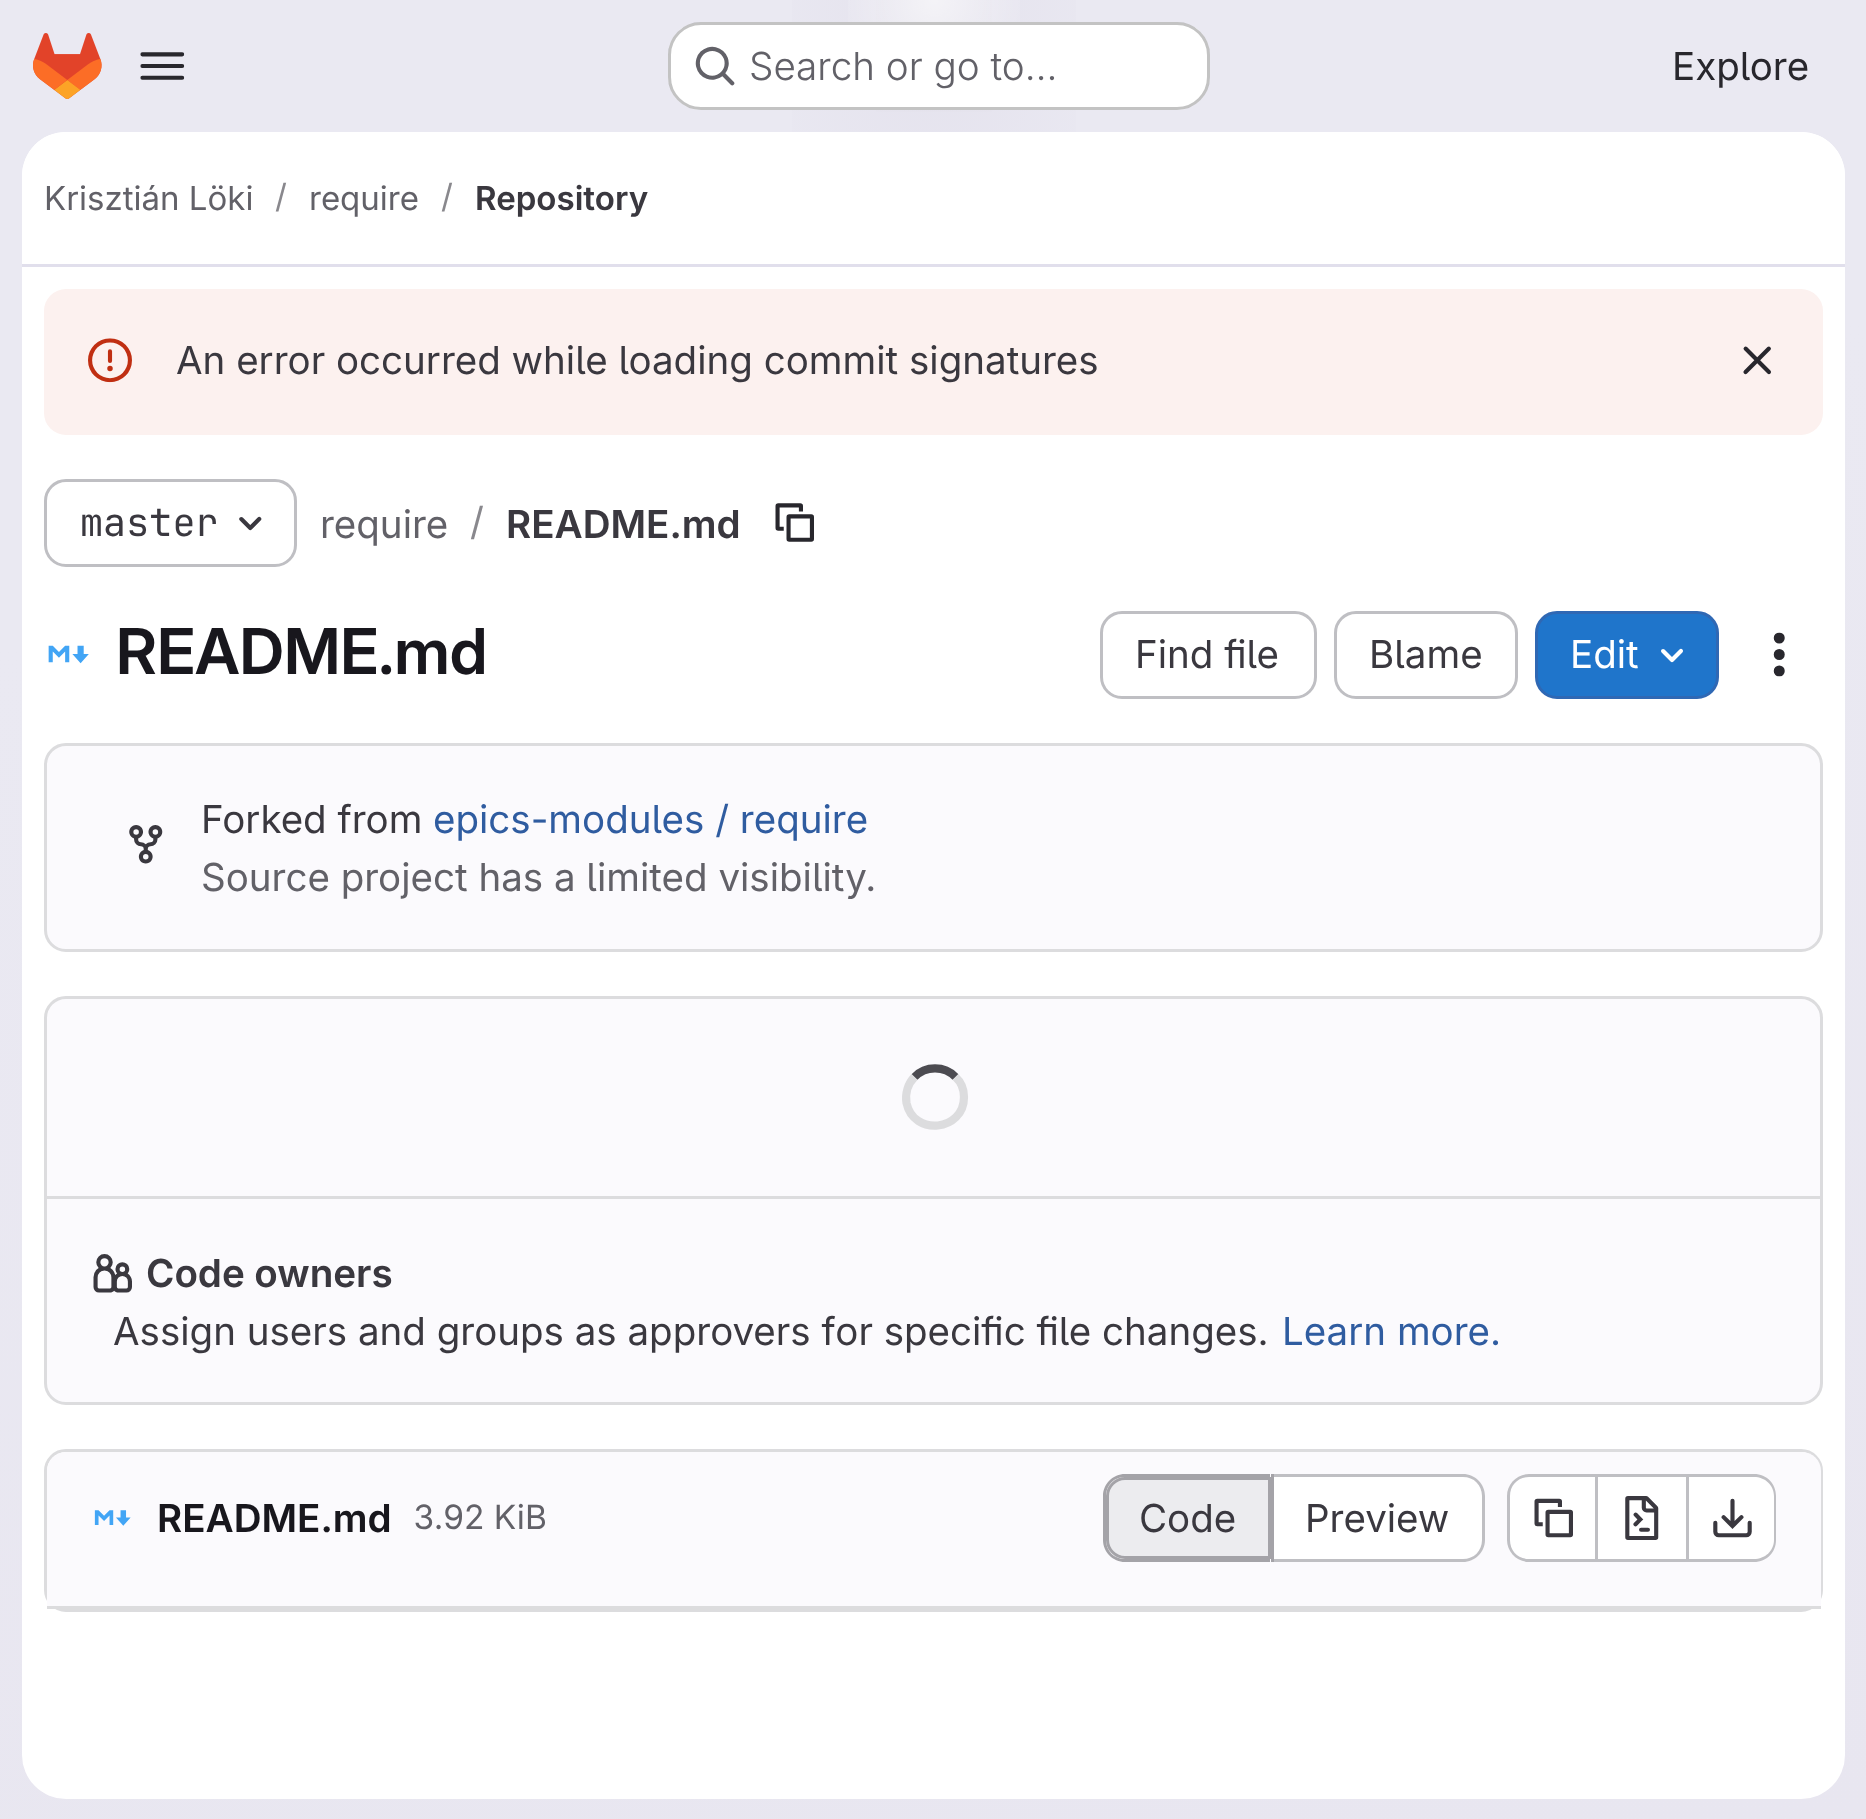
<svg xmlns="http://www.w3.org/2000/svg" width="1866" height="1819">
<style>
.a{font:300 38.5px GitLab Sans;fill:#626168}
.b{font:38.5px GitLab Sans;fill:#28272d}
.c{font:33px GitLab Sans;fill:#626168}
.d{font:33px GitLab Sans;fill:#89888d}
.e{font:600 33px GitLab Sans;fill:#3a383f}
.f{font:38.5px GitLab Sans;fill:#3a383f}
.g{font:38.5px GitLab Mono;fill:#3a383f}
.h{font:38.5px GitLab Sans;fill:#626168}
.i{font:38.5px GitLab Sans;fill:#89888d}
.j{font:600 38.5px GitLab Sans;fill:#3a383f}
.k{font:600 63.25px 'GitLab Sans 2';fill:#18171d}
.l{font:38.5px GitLab Sans;fill:#fff}
.m{font:38.5px GitLab Sans;fill:#2f5ca0}
.n{font:600 38.5px GitLab Sans;fill:#18171d}
.o{font:33.5px GitLab Sans;fill:#626168}
</style>
<defs>
<linearGradient id="g1" gradientUnits="userSpaceOnUse" x1="1117" y1="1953" x2="750" y2="-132"><stop offset="0" stop-color="#e8e6f0"/><stop offset="0.7" stop-color="#eae9f2"/></linearGradient>
<radialGradient id="g2" gradientUnits="userSpaceOnUse" cx="0" cy="0" r="1" gradientTransform="matrix(934 0 0 1821 934 0)"><stop offset="0" stop-color="#e4e2ed"/><stop offset="0.21" stop-color="#e4e2ed" stop-opacity="0"/></radialGradient>
<radialGradient id="g3" gradientUnits="userSpaceOnUse" cx="0" cy="0" r="1" gradientTransform="matrix(934 0 0 1821 934 0)"><stop offset="0" stop-color="#e4e2ec"/><stop offset="0.15" stop-color="#e4e2ec" stop-opacity="0"/></radialGradient>
<radialGradient id="g4" gradientUnits="userSpaceOnUse" cx="934" cy="0" r="2046"><stop offset="0" stop-color="#fff" stop-opacity="0.6"/><stop offset="0.05" stop-color="#fff" stop-opacity="0"/></radialGradient>
</defs>
<rect width="100%" height="100%" fill="#fff"/>
<path fill="url(#g1)" d="M0 0h1866v1819H0z"/>
<path fill="url(#g2)" d="M792 0h284v132H792z"/>
<path fill="url(#g3)" d="M876 0h116v112H876z"/>
<path fill="url(#g4)" d="M848 0h172v22H848z"/>
<image href="1.png" x="33" y="33" width="69" height="66"/>
<image href="2.png" x="140" y="52" width="45" height="28"/>
<rect fill="#fff" x="668" y="22" width="542" height="88" rx="33"/>
<rect fill="none" stroke="#0505063d" stroke-width="3" x="669.5" y="23.5" width="539" height="85" rx="31.5"/>
<image href="3.png" x="695" y="46" width="40" height="40"/>
<rect fill="#fff" x="22" y="132" width="1823" height="1667" rx="44"/>
<path fill="#fff" d="M66 132h1735c24.5 0 44 19.5 44 44v91h-1823v-91c0-24.5 19.5-44 44-44z"/>
<path fill="#e1dfec" d="M22 264h1823v3H22z"/>
<rect fill="#fcf1ef" x="44" y="289" width="1779" height="146" rx="22"/>
<image href="4.png" x="88" y="338" width="44" height="45"/>
<image href="5.png" x="1743" y="346" width="28" height="29"/>
<rect fill="none" stroke="#bfbfc3" stroke-width="3" x="45.5" y="480.5" width="250" height="85" rx="20.5"/>
<image href="6.png" x="239" y="516" width="23" height="15"/>
<image href="7.png" x="775" y="503" width="39" height="39"/>
<image href="8.png" x="48" y="645" width="41" height="19"/>
<rect fill="none" stroke="#bfbfc3" stroke-width="3" x="1101.5" y="612.5" width="214" height="85" rx="20.5"/>
<rect fill="none" stroke="#bfbfc3" stroke-width="3" x="1335.5" y="612.5" width="181" height="85" rx="20.5"/>
<rect fill="#1f75cb" stroke="#2f68b4" stroke-width="3" x="1536.5" y="612.5" width="181" height="85" rx="20.5"/>
<image href="9.png" x="1661" y="648" width="22" height="15"/>
<image href="10.png" x="1773" y="632" width="12" height="45"/>
<rect fill="#fbfafd" stroke="#dcdcde" stroke-width="3" x="45.5" y="744.5" width="1776" height="206" rx="20.5"/>
<image href="11.png" x="129" y="825" width="34" height="39"/>
<rect fill="#fbfafd" stroke="#dcdcde" stroke-width="3" x="45.5" y="997.5" width="1776" height="406" rx="20.5"/>
<path fill="none" stroke="#4c4b51" stroke-width="8.2" d="M914.5 1077c11-11.5 30-11.5 41 0"/>
<path fill="none" stroke="#dcdcde" stroke-width="8.2" d="M955.5 1077c5.5 5 8.5 12.5 8.5 20c0 34.5-50.5 39.5-57.5 6c-1.5-9.5 1.5-19.5 8-26"/>
<path fill="#dcdcde" d="M47 1196h1774v3H47z"/>
<image href="12.png" x="93" y="1254" width="39" height="39"/>
<rect fill="none" stroke="#dcdcde" stroke-width="3" x="45.5" y="1450.5" width="1776" height="160" rx="20.5"/>
<path fill="#fbfafd" d="M66 1452h1736c10.5 0 19 8.5 19 19v138h-1774v-138c0-10.5 8.5-19 19-19z"/>
<path fill="#dcdcde" d="M47 1606h1774v3H47z"/>
<image href="13.png" x="94" y="1510" width="37" height="16"/>
<path fill="#ececef" stroke="#a4a3a8" stroke-width="3" d="M1125 1478.5h144.5v79h-144.5c-9.5 0-17.5-8-17.5-17.5v-44c0-9.5 8-17.5 17.5-17.5z"/>
<path fill="#a4a3a8" fill-rule="evenodd" d="M1125 1474h145v88h-145c-12 0-22-10-22-22v-44c0-12 10-22 22-22zm0 3h145v82h-145c-11 0-19-8-19-19v-44c0-11 8-19 19-19z"/>
<path fill="#fff" d="M1273 1477h190c10.5 0 19 8.5 19 19v44c0 10.5-8.5 19-19 19h-190z"/>
<path fill="#bfbfc3" fill-rule="evenodd" d="M1273 1474h190c12 0 22 10 22 22v44c0 12-10 22-22 22h-190zm0 3h190c11 0 19 8 19 19v44c0 11-8 19-19 19h-190z"/>
<path fill="#a4a3a8" d="M1271 1474h3v88H1271z"/>
<path fill="#fff" d="M1529 1477h66v82h-66c-10.5 0-19-8.5-19-19v-44c0-10.5 8.5-19 19-19z"/>
<path fill="#bfbfc3" fill-rule="evenodd" d="M1529 1474h66v88h-66c-12 0-22-10-22-22v-44c0-12 10-22 22-22zm0 3h66v82h-66c-11 0-19-8-19-19v-44c0-11 8-19 19-19z"/>
<image href="14.png" x="1534" y="1498" width="39" height="40"/>
<path fill="#fff" d="M1598 1477h88v82H1598z"/>
<path fill="#bfbfc3" d="M1598 1474h88v3H1598z"/>
<path fill="#bfbfc3" d="M1598 1559h88v3H1598z"/>
<path fill="#bfbfc3" d="M1595 1474h3v88H1595z"/>
<image href="15.png" x="1625" y="1496" width="34" height="44"/>
<path fill="#fff" d="M1689 1477h66c10.5 0 19 8.5 19 19v44c0 10.5-8.5 19-19 19h-66z"/>
<path fill="#bfbfc3" fill-rule="evenodd" d="M1688 1474h66c13 0 22 10 22 22v44c0 12-9 22-22 22h-66zm0 3h66c11 0 20 8 20 19v44c0 11-9 19-20 19h-66z"/>
<path fill="#bfbfc3" d="M1686 1474h3v88H1686z"/>
<image href="16.png" x="1713" y="1498" width="39" height="40"/>
<text class="a" x="749" y="80">Search or go to…</text>
<text class="b" x="1672" y="80">Explore</text>
<text class="c" x="44" y="210">Krisztián Löki</text>
<text class="d" x="275" y="208">/</text>
<text class="c" x="309" y="210">require</text>
<text class="d" x="441" y="208">/</text>
<text class="e" x="475" y="210">Repository</text>
<text class="f" x="176" y="374">An error occurred while loading commit signatures</text>
<text class="g" x="80" y="536">master</text>
<text class="h" x="320" y="538">require</text>
<text class="i" x="470" y="535">/</text>
<text class="j" x="506" y="538">README.md</text>
<text class="k" x="116" y="674">README.md</text>
<text class="f" x="1135" y="668">Find file</text>
<text class="f" x="1369" y="668">Blame</text>
<text class="l" x="1570" y="668">Edit</text>
<text class="f" x="201" y="833">Forked from</text>
<text class="m" x="433" y="833">epics-modules / require</text>
<text class="h" x="201" y="891">Source project has a limited visibility.</text>
<text class="j" x="146" y="1287">Code owners</text>
<text class="f" x="113" y="1345">Assign users and groups as approvers for specific file changes.</text>
<text class="m" x="1282" y="1345">Learn more.</text>
<text class="n" x="157" y="1532">README.md</text>
<text class="o" x="413" y="1529">3.92 KiB</text>
<text class="f" x="1139" y="1532">Code</text>
<text class="f" x="1305" y="1532">Preview</text>
</svg>
